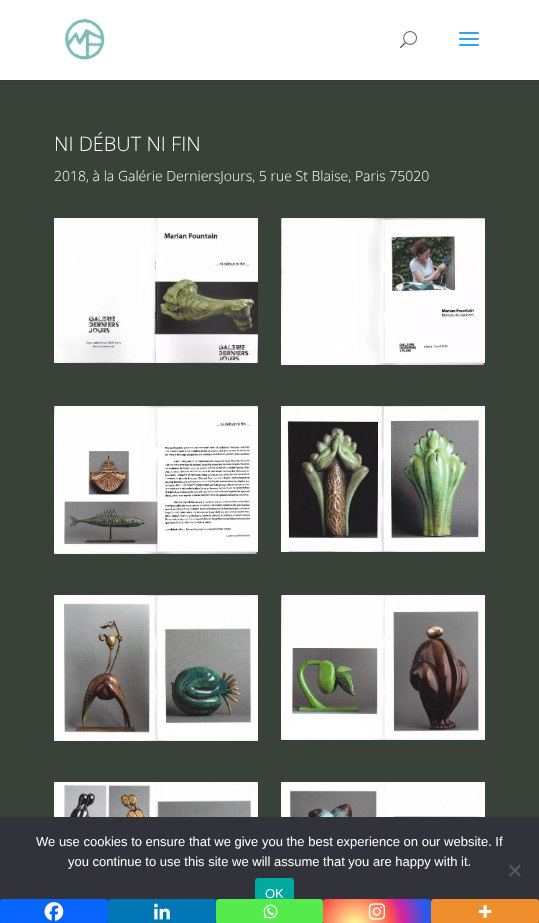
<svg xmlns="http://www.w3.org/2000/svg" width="539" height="923">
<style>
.a{font:300 20px Open Sans;fill:#fff}
.b{font:300 14px Open Sans;fill:#fff}
.c{font:13px Liberation Sans;fill:#fff}
</style>
<defs>
<radialGradient id="g1" gradientUnits="userSpaceOnUse" cx="355" cy="926" r="80"><stop offset="0" stop-color="#fdf497"/><stop offset="0.05" stop-color="#fdf497"/><stop offset="0.45" stop-color="#fd5949"/><stop offset="0.6" stop-color="#d6249f"/><stop offset="0.9" stop-color="#285aeb"/></radialGradient>
</defs>
<rect width="100%" height="100%" fill="#394239"/>
<path fill="#333b33" d="M0 80h539v1H0z"/>
<path fill="#fff" d="M0 0h539v80H0z"/>
<image href="1.png" x="64" y="19" width="41" height="41"/>
<image href="2.png" x="400" y="31" width="17" height="18"/>
<image href="3.png" x="459" y="32" width="20" height="14"/>
<image href="4.png" x="54" y="218" width="204" height="145"/>
<image href="5.png" x="281" y="218" width="204" height="147"/>
<image href="6.png" x="54" y="406" width="204" height="148"/>
<image href="7.png" x="281" y="406" width="204" height="146"/>
<image href="8.png" x="54" y="595" width="204" height="146"/>
<image href="9.png" x="281" y="595" width="204" height="145"/>
<image href="10.png" x="54" y="782" width="204" height="35"/>
<image href="11.png" x="281" y="782" width="204" height="35"/>
<path fill="#32323a" d="M0 817h539v106H0z"/>
<rect fill="#0765fe" y="899" width="108" height="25" rx="3"/>
<image href="12.png" x="44" y="902" width="20" height="19"/>
<rect fill="#0077b5" x="108" y="899" width="108" height="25" rx="3"/>
<image href="13.png" x="154" y="903" width="16" height="17"/>
<rect fill="#00a99d" x="255" y="878" width="39" height="30" rx="3"/>
<rect fill="#55eb4c" x="216" y="899" width="107" height="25" rx="3"/>
<image href="14.png" x="263" y="904" width="15" height="15"/>
<rect fill="url(#g1)" x="323" y="899" width="108" height="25" rx="3"/>
<image href="15.png" x="368" y="903" width="17" height="17"/>
<rect fill="#ee8e2d" x="431" y="899" width="108" height="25" rx="3"/>
<image href="16.png" x="478" y="905" width="14" height="13"/>
<path fill="#59595d" d="M519.5 864.5l1.5 1.5l-10.5 10.5l-1.5-1.5z"/>
<path fill="#59595d" d="M509 866l1.5-1.5l10.5 10.5l-1.5 1.5z"/>
<text class="a" x="54" y="151">NI DÉBUT NI FIN</text>
<text class="b" x="54" y="181">2018, à la Galérie DerniersJours, 5 rue St Blaise, Paris 75020</text>
<text class="c" x="36" y="846">We use cookies to ensure that we give you the best experience on our website. If</text>
<text class="c" x="68" y="866">you continue to use this site we will assume that you are happy with it.</text>
<text class="c" x="265" y="898">OK</text>
</svg>
